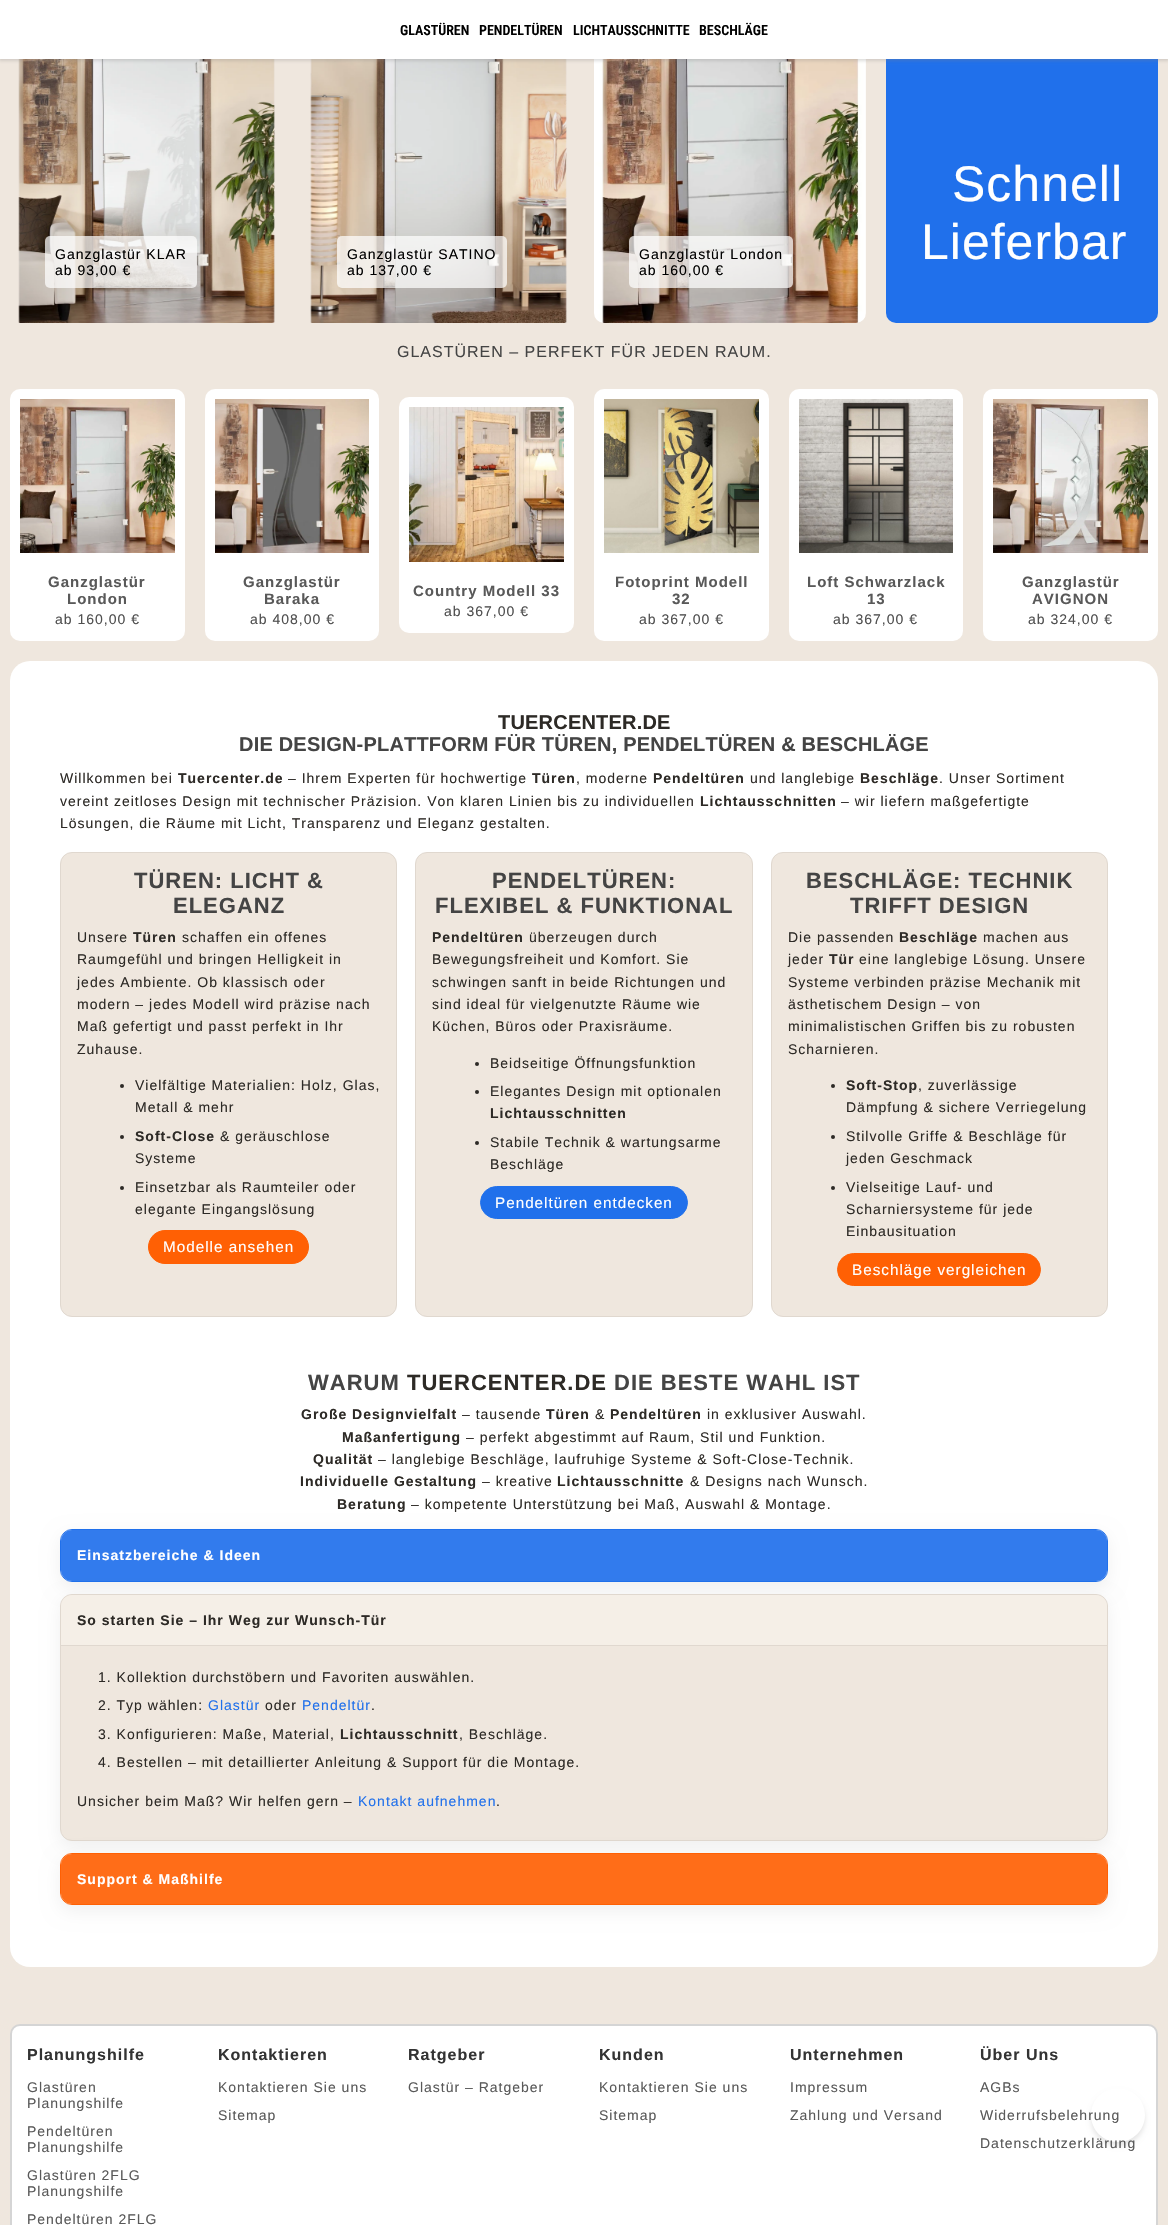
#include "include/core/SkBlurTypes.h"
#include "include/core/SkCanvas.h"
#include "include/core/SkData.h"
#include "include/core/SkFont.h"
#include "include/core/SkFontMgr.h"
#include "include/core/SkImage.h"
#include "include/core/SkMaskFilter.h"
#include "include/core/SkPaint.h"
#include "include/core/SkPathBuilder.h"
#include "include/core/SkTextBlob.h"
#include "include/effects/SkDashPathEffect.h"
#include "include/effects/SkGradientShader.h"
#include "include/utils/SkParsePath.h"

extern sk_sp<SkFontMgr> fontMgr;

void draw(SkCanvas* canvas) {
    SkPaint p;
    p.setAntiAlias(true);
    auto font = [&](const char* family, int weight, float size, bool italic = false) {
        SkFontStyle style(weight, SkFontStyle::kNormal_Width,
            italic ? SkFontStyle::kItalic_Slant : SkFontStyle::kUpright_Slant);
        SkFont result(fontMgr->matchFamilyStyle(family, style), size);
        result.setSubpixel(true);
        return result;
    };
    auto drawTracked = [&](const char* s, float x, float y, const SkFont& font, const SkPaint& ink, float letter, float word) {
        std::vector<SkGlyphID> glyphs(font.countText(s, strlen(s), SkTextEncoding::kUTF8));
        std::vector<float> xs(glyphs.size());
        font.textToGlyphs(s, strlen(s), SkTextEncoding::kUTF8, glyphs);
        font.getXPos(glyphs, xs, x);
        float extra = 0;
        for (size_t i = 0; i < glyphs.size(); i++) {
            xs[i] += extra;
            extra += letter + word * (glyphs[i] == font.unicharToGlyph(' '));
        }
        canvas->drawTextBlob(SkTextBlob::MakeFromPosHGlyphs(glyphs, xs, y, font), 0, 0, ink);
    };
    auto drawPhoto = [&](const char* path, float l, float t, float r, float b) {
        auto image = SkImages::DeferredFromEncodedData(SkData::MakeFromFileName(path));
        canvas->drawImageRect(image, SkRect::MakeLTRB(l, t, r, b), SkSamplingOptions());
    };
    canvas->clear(0xFFEFE7DE);
    drawPhoto("media/1.png", 18, 59, 275, 323);
    drawPhoto("media/2.png", 310, 59, 567, 323);
    drawPhoto("media/3.png", 594, 59, 866, 323);
    p.setColor(0xFF2070EB);
    canvas->drawRoundRect(SkRect::MakeLTRB(886, 8, 1158, 323), 10, 10, p);
    p.setColor(0x45808080);
    p.setMaskFilter(SkMaskFilter::MakeBlur(kNormal_SkBlurStyle, 1.5f));
    canvas->drawRect(SkRect::MakeLTRB(-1, 0, 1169, 61), p);
    p.setMaskFilter(nullptr);
    p.setColor(0xFFFFFFFF);
    canvas->drawRect(SkRect::MakeLTRB(0, 0, 1168, 59), p);
    auto font1 = font("Roboto Condensed", 600, 14);
    p.setColor(0xFF000000);
    {
        const struct { const char* s; float x, y; } items[] = {
            {"GLASTÜREN", 400, 35},
            {"PENDELTÜREN", 479, 35},
            {"LICHTAUSSCHNITTE", 573, 35},
            {"BESCHLÄGE", 699, 35},
        };
        for (auto [s, x, y] : items) {
            canvas->drawString(s, x, y, font1, p);
        }
    }
    p.setColor(0xB5FFFFFF);
    canvas->drawRoundRect(SkRect::MakeLTRB(45, 236, 197, 288), 5, 5, p);
    auto font2 = font("Liberation Sans", 400, 14);
    p.setColor(0xFF000000);
    drawTracked("Ganzglastür KLAR", 55, 259, font2, p, 1, 0);
    drawTracked("ab 93,00 €", 55, 275, font2, p, 1, 0);
    p.setColor(0xB5FFFFFF);
    canvas->drawRoundRect(SkRect::MakeLTRB(337, 236, 507, 288), 5, 5, p);
    p.setColor(0xFF000000);
    drawTracked("Ganzglastür SATINO", 347, 259, font2, p, 1, 0);
    drawTracked("ab 137,00 €", 347, 275, font2, p, 1, 0);
    p.setColor(0xB5FFFFFF);
    canvas->drawRoundRect(SkRect::MakeLTRB(629, 236, 793, 288), 5, 5, p);
    p.setColor(0xFF000000);
    drawTracked("Ganzglastür London", 639, 259, font2, p, 1, 0);
    drawTracked("ab 160,00 €", 639, 275, font2, p, 1, 0);
    auto font3 = font("Liberation Sans", 400, 50);
    p.setColor(0xFFFFFFFF);
    drawTracked("Schnell", 952, 201, font3, p, 1, 0);
    drawTracked("Lieferbar", 921, 259, font3, p, 1, 0);
    auto font4 = font("Liberation Sans", 400, 16);
    p.setColor(0xFF444444);
    drawTracked("GLASTÜREN – PERFEKT FÜR JEDEN RAUM.", 397, 357, font4, p, 1, 0);
    p.setColor(0xFFFFFFFF);
    canvas->drawRoundRect(SkRect::MakeLTRB(10, 389, 185, 641), 10, 10, p);
    drawPhoto("media/4.png", 20, 399, 175, 553);
    auto font5 = font("Liberation Sans", 700, 15);
    p.setColor(0xFF595959);
    drawTracked("Ganzglastür", 48, 587, font5, p, 1, 0);
    drawTracked("London", 67, 604, font5, p, 1, 0);
    p.setColor(0xFF4F4F4F);
    drawTracked("ab 160,00 €", 55, 624, font2, p, 1, 0);
    p.setColor(0xFFFFFFFF);
    canvas->drawRoundRect(SkRect::MakeLTRB(205, 389, 379, 641), 10, 10, p);
    drawPhoto("media/5.png", 215, 399, 369, 553);
    p.setColor(0xFF595959);
    drawTracked("Ganzglastür", 243, 587, font5, p, 1, 0);
    drawTracked("Baraka", 264, 604, font5, p, 1, 0);
    p.setColor(0xFF4F4F4F);
    drawTracked("ab 408,00 €", 250, 624, font2, p, 1, 0);
    p.setColor(0xFFFFFFFF);
    canvas->drawRoundRect(SkRect::MakeLTRB(399, 397, 574, 633), 10, 10, p);
    drawPhoto("media/6.png", 409, 407, 564, 562);
    p.setColor(0xFF595959);
    drawTracked("Country Modell 33", 413, 596, font5, p, 1, 0);
    p.setColor(0xFF4F4F4F);
    drawTracked("ab 367,00 €", 444, 616, font2, p, 1, 0);
    p.setColor(0xFFFFFFFF);
    canvas->drawRoundRect(SkRect::MakeLTRB(594, 389, 769, 641), 10, 10, p);
    drawPhoto("media/7.png", 604, 399, 759, 553);
    p.setColor(0xFF595959);
    drawTracked("Fotoprint Modell", 615, 587, font5, p, 1, 0);
    drawTracked("32", 672, 604, font5, p, 1, 0);
    p.setColor(0xFF4F4F4F);
    drawTracked("ab 367,00 €", 639, 624, font2, p, 1, 0);
    p.setColor(0xFFFFFFFF);
    canvas->drawRoundRect(SkRect::MakeLTRB(789, 389, 963, 641), 10, 10, p);
    drawPhoto("media/8.png", 799, 399, 953, 553);
    p.setColor(0xFF595959);
    drawTracked("Loft Schwarzlack", 807, 587, font5, p, 1, 0);
    drawTracked("13", 867, 604, font5, p, 1, 0);
    p.setColor(0xFF4F4F4F);
    drawTracked("ab 367,00 €", 833, 624, font2, p, 1, 0);
    p.setColor(0xFFFFFFFF);
    canvas->drawRoundRect(SkRect::MakeLTRB(983, 389, 1158, 641), 10, 10, p);
    drawPhoto("media/9.png", 993, 399, 1148, 553);
    p.setColor(0xFF595959);
    drawTracked("Ganzglastür", 1022, 587, font5, p, 1, 0);
    drawTracked("AVIGNON", 1032, 604, font5, p, 1, 0);
    p.setColor(0xFF4F4F4F);
    drawTracked("ab 324,00 €", 1028, 624, font2, p, 1, 0);
    p.setColor(0xFFFFFFFF);
    canvas->drawRoundRect(SkRect::MakeLTRB(10, 661, 1158, 1967), 20, 20, p);
    auto font6 = font("Liberation Sans", 700, 20);
    p.setColor(0xFF2D2A26);
    drawTracked("TUERCENTER.DE", 498, 729, font6, p, 0.2f, 0);
    p.setColor(0xFF444444);
    drawTracked("DIE DESIGN-PLATTFORM FÜR TÜREN, PENDELTÜREN & BESCHLÄGE", 239, 751, font6, p, 0.2f, 0);
    p.setColor(0xFF2D2A26);
    drawTracked("Willkommen bei", 60, 783, font2, p, 1, 0);
    auto font7 = font("Liberation Sans", 700, 14);
    drawTracked("Tuercenter.de", 178, 783, font7, p, 1, 0);
    drawTracked("– Ihrem Experten für hochwertige", 288, 783, font2, p, 1, 0);
    drawTracked("Türen", 532, 783, font7, p, 1, 0);
    drawTracked(", moderne", 576, 783, font2, p, 1, 0);
    drawTracked("Pendeltüren", 653, 783, font7, p, 1, 0);
    drawTracked("und langlebige", 750, 783, font2, p, 1, 0);
    drawTracked("Beschläge", 860, 783, font7, p, 1, 0);
    drawTracked(". Unser Sortiment", 939, 783, font2, p, 1, 0);
    drawTracked("vereint zeitloses Design mit technischer Präzision. Von klaren Linien bis zu individuellen", 60, 806, font2, p, 1, 0);
    drawTracked("Lichtausschnitten", 700, 806, font7, p, 1, 0);
    drawTracked("– wir liefern maßgefertigte", 841, 806, font2, p, 1, 0);
    drawTracked("Lösungen, die Räume mit Licht, Transparenz und Eleganz gestalten.", 60, 828, font2, p, 1, 0);
    p.setColor(0xFFEFE7DE);
    canvas->drawRoundRect(SkRect::MakeLTRB(60.5f, 852.5f, 396.5f, 1316.5f), 11.5f, 11.5f, p);
    p.setStyle(SkPaint::kStroke_Style);
    p.setStrokeWidth(1);
    p.setColor(0xFFE0D8CF);
    canvas->drawRoundRect(SkRect::MakeLTRB(60.5f, 852.5f, 396.5f, 1316.5f), 11.5f, 11.5f, p);
    auto font8 = font("Liberation Sans", 700, 22);
    p.setStyle(SkPaint::kFill_Style);
    p.setColor(0xFF444444);
    drawTracked("TÜREN: LICHT &", 134, 888, font8, p, 1, 0);
    drawTracked("ELEGANZ", 173, 913, font8, p, 1, 0);
    p.setColor(0xFF2D2A26);
    drawTracked("Unsere", 77, 942, font2, p, 1, 0);
    drawTracked("Türen", 133, 942, font7, p, 1, 0);
    {
        const struct { const char* s; float x, y; } items[] = {
            {"schaffen ein offenes", 182, 942},
            {"Raumgefühl und bringen Helligkeit in", 77, 964},
            {"jedes Ambiente. Ob klassisch oder", 77, 987},
            {"modern – jedes Modell wird präzise nach", 77, 1009},
            {"Maß gefertigt und passt perfekt in Ihr", 77, 1031},
            {"Zuhause.", 77, 1054},
        };
        for (auto [s, x, y] : items) {
            drawTracked(s, x, y, font2, p, 1, 0);
        }
    }
    canvas->drawCircle(122, 1086, 2, p);
    drawTracked("Vielfältige Materialien: Holz, Glas,", 135, 1090, font2, p, 1, 0);
    drawTracked("Metall & mehr", 135, 1112, font2, p, 1, 0);
    canvas->drawCircle(122, 1137, 2, p);
    drawTracked("Soft-Close", 135, 1141, font7, p, 1, 0);
    drawTracked("& geräuschlose", 220, 1141, font2, p, 1, 0);
    drawTracked("Systeme", 135, 1163, font2, p, 1, 0);
    canvas->drawCircle(122, 1188, 2, p);
    drawTracked("Einsetzbar als Raumteiler oder", 135, 1192, font2, p, 1, 0);
    drawTracked("elegante Eingangslösung", 135, 1214, font2, p, 1, 0);
    p.setColor(0xFFFF6004);
    canvas->drawRoundRect(SkRect::MakeLTRB(148.5f, 1230.5f, 308.5f, 1263.5f), 16.5f, 16.5f, p);
    p.setStyle(SkPaint::kStroke_Style);
    canvas->drawRoundRect(SkRect::MakeLTRB(148.5f, 1230.5f, 308.5f, 1263.5f), 16.5f, 16.5f, p);
    auto font9 = font("Liberation Sans", 400, 15.25f);
    p.setStyle(SkPaint::kFill_Style);
    p.setColor(0xFFFFFFFF);
    drawTracked("Modelle ansehen", 163, 1252, font9, p, 1, 0);
    p.setColor(0xFFEFE7DE);
    canvas->drawRoundRect(SkRect::MakeLTRB(415.5f, 852.5f, 752.5f, 1316.5f), 11.5f, 11.5f, p);
    p.setStyle(SkPaint::kStroke_Style);
    p.setColor(0xFFE0D8CF);
    canvas->drawRoundRect(SkRect::MakeLTRB(415.5f, 852.5f, 752.5f, 1316.5f), 11.5f, 11.5f, p);
    p.setStyle(SkPaint::kFill_Style);
    p.setColor(0xFF444444);
    drawTracked("PENDELTÜREN:", 492, 888, font8, p, 1, 0);
    drawTracked("FLEXIBEL & FUNKTIONAL", 435, 913, font8, p, 1, 0);
    p.setColor(0xFF2D2A26);
    drawTracked("Pendeltüren", 432, 942, font7, p, 1, 0);
    {
        const struct { const char* s; float x, y; } items[] = {
            {"überzeugen durch", 529, 942},
            {"Bewegungsfreiheit und Komfort. Sie", 432, 964},
            {"schwingen sanft in beide Richtungen und", 432, 987},
            {"sind ideal für vielgenutzte Räume wie", 432, 1009},
            {"Küchen, Büros oder Praxisräume.", 432, 1031},
        };
        for (auto [s, x, y] : items) {
            drawTracked(s, x, y, font2, p, 1, 0);
        }
    }
    canvas->drawCircle(477, 1064, 2, p);
    drawTracked("Beidseitige Öffnungsfunktion", 490, 1068, font2, p, 1, 0);
    canvas->drawCircle(477, 1092, 2, p);
    drawTracked("Elegantes Design mit optionalen", 490, 1096, font2, p, 1, 0);
    drawTracked("Lichtausschnitten", 490, 1118, font7, p, 1, 0);
    canvas->drawCircle(477, 1143, 2, p);
    drawTracked("Stabile Technik & wartungsarme", 490, 1147, font2, p, 1, 0);
    drawTracked("Beschläge", 490, 1169, font2, p, 1, 0);
    p.setColor(0xFF2070EB);
    canvas->drawRoundRect(SkRect::MakeLTRB(480.5f, 1186.5f, 687.5f, 1218.5f), 16, 16, p);
    p.setStyle(SkPaint::kStroke_Style);
    canvas->drawRoundRect(SkRect::MakeLTRB(480.5f, 1186.5f, 687.5f, 1218.5f), 16, 16, p);
    p.setStyle(SkPaint::kFill_Style);
    p.setColor(0xFFFFFFFF);
    drawTracked("Pendeltüren entdecken", 495, 1208, font9, p, 1, 0);
    p.setColor(0xFFEFE7DE);
    canvas->drawRoundRect(SkRect::MakeLTRB(771.5f, 852.5f, 1107.5f, 1316.5f), 11.5f, 11.5f, p);
    p.setStyle(SkPaint::kStroke_Style);
    p.setColor(0xFFE0D8CF);
    canvas->drawRoundRect(SkRect::MakeLTRB(771.5f, 852.5f, 1107.5f, 1316.5f), 11.5f, 11.5f, p);
    p.setStyle(SkPaint::kFill_Style);
    p.setColor(0xFF444444);
    drawTracked("BESCHLÄGE: TECHNIK", 806, 888, font8, p, 1, 0);
    drawTracked("TRIFFT DESIGN", 850, 913, font8, p, 1, 0);
    p.setColor(0xFF2D2A26);
    drawTracked("Die passenden", 788, 942, font2, p, 1, 0);
    drawTracked("Beschläge", 899, 942, font7, p, 1, 0);
    drawTracked("machen aus", 983, 942, font2, p, 1, 0);
    drawTracked("jeder", 788, 964, font2, p, 1, 0);
    drawTracked("Tür", 829, 964, font7, p, 1, 0);
    {
        const struct { const char* s; float x, y; } items[] = {
            {"eine langlebige Lösung. Unsere", 859, 964},
            {"Systeme verbinden präzise Mechanik mit", 788, 987},
            {"ästhetischem Design – von", 788, 1009},
            {"minimalistischen Griffen bis zu robusten", 788, 1031},
            {"Scharnieren.", 788, 1054},
        };
        for (auto [s, x, y] : items) {
            drawTracked(s, x, y, font2, p, 1, 0);
        }
    }
    canvas->drawCircle(833, 1086, 2, p);
    drawTracked("Soft-Stop", 846, 1090, font7, p, 1, 0);
    drawTracked(", zuverlässige", 918, 1090, font2, p, 1, 0);
    drawTracked("Dämpfung & sichere Verriegelung", 846, 1112, font2, p, 1, 0);
    canvas->drawCircle(833, 1137, 2, p);
    drawTracked("Stilvolle Griffe & Beschläge für", 846, 1141, font2, p, 1, 0);
    drawTracked("jeden Geschmack", 846, 1163, font2, p, 1, 0);
    canvas->drawCircle(833, 1188, 2, p);
    {
        const struct { const char* s; float x, y; } items[] = {
            {"Vielseitige Lauf- und", 846, 1192},
            {"Scharniersysteme für jede", 846, 1214},
            {"Einbausituation", 846, 1236},
        };
        for (auto [s, x, y] : items) {
            drawTracked(s, x, y, font2, p, 1, 0);
        }
    }
    p.setColor(0xFFFF6004);
    canvas->drawRoundRect(SkRect::MakeLTRB(837.5f, 1253.5f, 1040.5f, 1285.5f), 16, 16, p);
    p.setStyle(SkPaint::kStroke_Style);
    canvas->drawRoundRect(SkRect::MakeLTRB(837.5f, 1253.5f, 1040.5f, 1285.5f), 16, 16, p);
    p.setStyle(SkPaint::kFill_Style);
    p.setColor(0xFFFFFFFF);
    drawTracked("Beschläge vergleichen", 852, 1275, font9, p, 1, 0);
    p.setColor(0xFF444444);
    drawTracked("WARUM", 308, 1390, font8, p, 1, 0);
    p.setColor(0xFF2D2A26);
    drawTracked("TUERCENTER.DE", 407, 1390, font8, p, 1, 0);
    p.setColor(0xFF444444);
    drawTracked("DIE BESTE WAHL IST", 614, 1390, font8, p, 1, 0);
    p.setColor(0xFF2D2A26);
    drawTracked("Große Designvielfalt", 301, 1419, font7, p, 1, 0);
    drawTracked("– tausende", 462, 1419, font2, p, 1, 0);
    drawTracked("Türen", 546, 1419, font7, p, 1, 0);
    drawTracked("&", 595, 1419, font2, p, 1, 0);
    drawTracked("Pendeltüren", 610, 1419, font7, p, 1, 0);
    drawTracked("in exklusiver Auswahl.", 707, 1419, font2, p, 1, 0);
    drawTracked("Maßanfertigung", 342, 1442, font7, p, 1, 0);
    drawTracked("– perfekt abgestimmt auf Raum, Stil und Funktion.", 466, 1442, font2, p, 1, 0);
    drawTracked("Qualität", 313, 1464, font7, p, 1, 0);
    drawTracked("– langlebige Beschläge, laufruhige Systeme & Soft-Close-Technik.", 378, 1464, font2, p, 1, 0);
    drawTracked("Individuelle Gestaltung", 300, 1486, font7, p, 1, 0);
    drawTracked("– kreative", 482, 1486, font2, p, 1, 0);
    drawTracked("Lichtausschnitte", 557, 1486, font7, p, 1, 0);
    drawTracked("& Designs nach Wunsch.", 690, 1486, font2, p, 1, 0);
    drawTracked("Beratung", 337, 1509, font7, p, 1, 0);
    drawTracked("– kompetente Unterstützung bei Maß, Auswahl & Montage.", 411, 1509, font2, p, 1, 0);
    p.setColor(0x0F000000);
    p.setMaskFilter(SkMaskFilter::MakeBlur(kNormal_SkBlurStyle, 9));
    canvas->drawRoundRect(SkRect::MakeLTRB(60, 1535, 1108, 1588), 12, 12, p);
    p.setMaskFilter(nullptr);
    p.setStyle(SkPaint::kStroke_Style);
    p.setColor(0xFF2070EB);
    canvas->drawRoundRect(SkRect::MakeLTRB(60.5f, 1529.5f, 1107.5f, 1581.5f), 11.5f, 11.5f, p);
    p.setStyle(SkPaint::kFill_Style);
    p.setColor(0xFF327BED);
    canvas->drawRoundRect(SkRect::MakeLTRB(61, 1530, 1107, 1581), 11, 11, p);
    p.setColor(0xFFFFFFFF);
    drawTracked("Einsatzbereiche & Ideen", 77, 1560, font7, p, 1, 0);
    p.setColor(0x0F000000);
    p.setMaskFilter(SkMaskFilter::MakeBlur(kNormal_SkBlurStyle, 9));
    canvas->drawRoundRect(SkRect::MakeLTRB(60, 1600, 1108, 1847), 12, 12, p);
    p.setMaskFilter(nullptr);
    p.setColor(0xFFEFE7DE);
    canvas->drawRoundRect(SkRect::MakeLTRB(60.5f, 1594.5f, 1107.5f, 1840.5f), 11.5f, 11.5f, p);
    p.setStyle(SkPaint::kStroke_Style);
    p.setColor(0xFFE0D8CF);
    canvas->drawRoundRect(SkRect::MakeLTRB(60.5f, 1594.5f, 1107.5f, 1840.5f), 11.5f, 11.5f, p);
    p.setStyle(SkPaint::kFill_Style);
    p.setColor(0xFFF5EFE7);
    canvas->drawPath(SkPathBuilder().moveTo(72, 1595).lineTo(1096, 1595).cubicTo(1102, 1595, 1107, 1600, 1107, 1606).lineTo(1107, 1646).lineTo(61, 1646).lineTo(61, 1606).cubicTo(61, 1600, 66, 1595, 72, 1595).close().detach(), p);
    p.setColor(0xFFE0D8CF);
    canvas->drawRect(SkRect::MakeLTRB(61, 1645, 1107, 1646), p);
    p.setColor(0xFF2D2A26);
    drawTracked("So starten Sie – Ihr Weg zur Wunsch-Tür", 77, 1625, font7, p, 1, 0);
    drawTracked("1. Kollektion durchstöbern und Favoriten auswählen.", 98, 1682, font2, p, 1, 0);
    drawTracked("2. Typ wählen:", 98, 1710, font2, p, 1, 0);
    p.setColor(0xFF2070EB);
    drawTracked("Glastür", 208, 1710, font2, p, 1, 0);
    p.setColor(0xFF2D2A26);
    drawTracked("oder", 265, 1710, font2, p, 1, 0);
    p.setColor(0xFF2070EB);
    drawTracked("Pendeltür", 302, 1710, font2, p, 1, 0);
    p.setColor(0xFF2D2A26);
    drawTracked(".", 371, 1710, font2, p, 1, 0);
    drawTracked("3. Konfigurieren: Maße, Material,", 98, 1739, font2, p, 1, 0);
    drawTracked("Lichtausschnitt", 340, 1739, font7, p, 1, 0);
    {
        const struct { const char* s; float x, y; } items[] = {
            {", Beschläge.", 459, 1739},
            {"4. Bestellen – mit detaillierter Anleitung & Support für die Montage.", 98, 1767},
            {"Unsicher beim Maß? Wir helfen gern –", 77, 1806},
        };
        for (auto [s, x, y] : items) {
            drawTracked(s, x, y, font2, p, 1, 0);
        }
    }
    p.setColor(0xFF2070EB);
    drawTracked("Kontakt aufnehmen", 358, 1806, font2, p, 1, 0);
    p.setColor(0xFF2D2A26);
    drawTracked(".", 496, 1806, font2, p, 1, 0);
    p.setColor(0x0F000000);
    p.setMaskFilter(SkMaskFilter::MakeBlur(kNormal_SkBlurStyle, 9));
    canvas->drawRoundRect(SkRect::MakeLTRB(60, 1859, 1108, 1911), 12, 12, p);
    p.setMaskFilter(nullptr);
    p.setStyle(SkPaint::kStroke_Style);
    p.setColor(0xFFFF6004);
    canvas->drawRoundRect(SkRect::MakeLTRB(60.5f, 1853.5f, 1107.5f, 1904.5f), 11.5f, 11.5f, p);
    p.setStyle(SkPaint::kFill_Style);
    p.setColor(0xFFFF6D18);
    canvas->drawRoundRect(SkRect::MakeLTRB(61, 1854, 1107, 1904), 11, 11, p);
    p.setColor(0xFFFFFFFF);
    drawTracked("Support & Maßhilfe", 77, 1884, font7, p, 1, 0);
    canvas->drawRoundRect(SkRect::MakeLTRB(11, 2025, 1157, 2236), 9, 9, p);
    p.setStyle(SkPaint::kStroke_Style);
    p.setStrokeWidth(2);
    p.setColor(0xFFD5D5D5);
    canvas->drawRoundRect(SkRect::MakeLTRB(11, 2025, 1157, 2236), 9, 9, p);
    auto font10 = font("Liberation Sans", 700, 16);
    p.setStyle(SkPaint::kFill_Style);
    p.setColor(0xFF333333);
    drawTracked("Planungshilfe", 27, 2060, font10, p, 1, 0);
    p.setColor(0xFF595959);
    {
        const struct { const char* s; float x, y; } items[] = {
            {"Glastüren", 27, 2092},
            {"Planungshilfe", 27, 2108},
            {"Pendeltüren", 27, 2136},
            {"Planungshilfe", 27, 2152},
            {"Glastüren 2FLG", 27, 2180},
            {"Planungshilfe", 27, 2196},
            {"Pendeltüren 2FLG", 27, 2224},
        };
        for (auto [s, x, y] : items) {
            drawTracked(s, x, y, font2, p, 1, 0);
        }
    }
    p.setColor(0xFF333333);
    drawTracked("Kontaktieren", 218, 2060, font10, p, 1, 0);
    p.setColor(0xFF595959);
    drawTracked("Kontaktieren Sie uns", 218, 2092, font2, p, 1, 0);
    drawTracked("Sitemap", 218, 2120, font2, p, 1, 0);
    p.setColor(0xFF333333);
    drawTracked("Ratgeber", 408, 2060, font10, p, 1, 0);
    p.setColor(0xFF595959);
    drawTracked("Glastür – Ratgeber", 408, 2092, font2, p, 1, 0);
    p.setColor(0xFF333333);
    drawTracked("Kunden", 599, 2060, font10, p, 1, 0);
    p.setColor(0xFF595959);
    drawTracked("Kontaktieren Sie uns", 599, 2092, font2, p, 1, 0);
    drawTracked("Sitemap", 599, 2120, font2, p, 1, 0);
    p.setColor(0xFF333333);
    drawTracked("Unternehmen", 790, 2060, font10, p, 1, 0);
    p.setColor(0xFF595959);
    drawTracked("Impressum", 790, 2092, font2, p, 1, 0);
    drawTracked("Zahlung und Versand", 790, 2120, font2, p, 1, 0);
    p.setColor(0xFF333333);
    drawTracked("Über Uns", 980, 2060, font10, p, 1, 0);
    p.setColor(0xFF595959);
    {
        const struct { const char* s; float x, y; } items[] = {
            {"AGBs", 980, 2092},
            {"Widerrufsbelehrung", 980, 2120},
            {"Datenschutzerklärung", 980, 2148},
        };
        for (auto [s, x, y] : items) {
            drawTracked(s, x, y, font2, p, 1, 0);
        }
    }
    canvas->save();
    canvas->clipPath(SkPathBuilder(SkPathFillType::kEvenOdd).moveTo(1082, 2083).lineTo(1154, 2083).lineTo(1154, 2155).lineTo(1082, 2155).close().moveTo(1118, 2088).cubicTo(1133, 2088, 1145, 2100, 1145, 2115).cubicTo(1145, 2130, 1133, 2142, 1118, 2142).cubicTo(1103, 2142, 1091, 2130, 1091, 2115).cubicTo(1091, 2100, 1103, 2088, 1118, 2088).close().detach(), true);
    p.setColor(0x1A000000);
    p.setMaskFilter(SkMaskFilter::MakeBlur(kNormal_SkBlurStyle, 2.5f));
    canvas->drawRoundRect(SkRect::MakeLTRB(1091, 2092, 1145, 2146), 27, 27, p);
    p.setMaskFilter(nullptr);
    canvas->restore();
}
